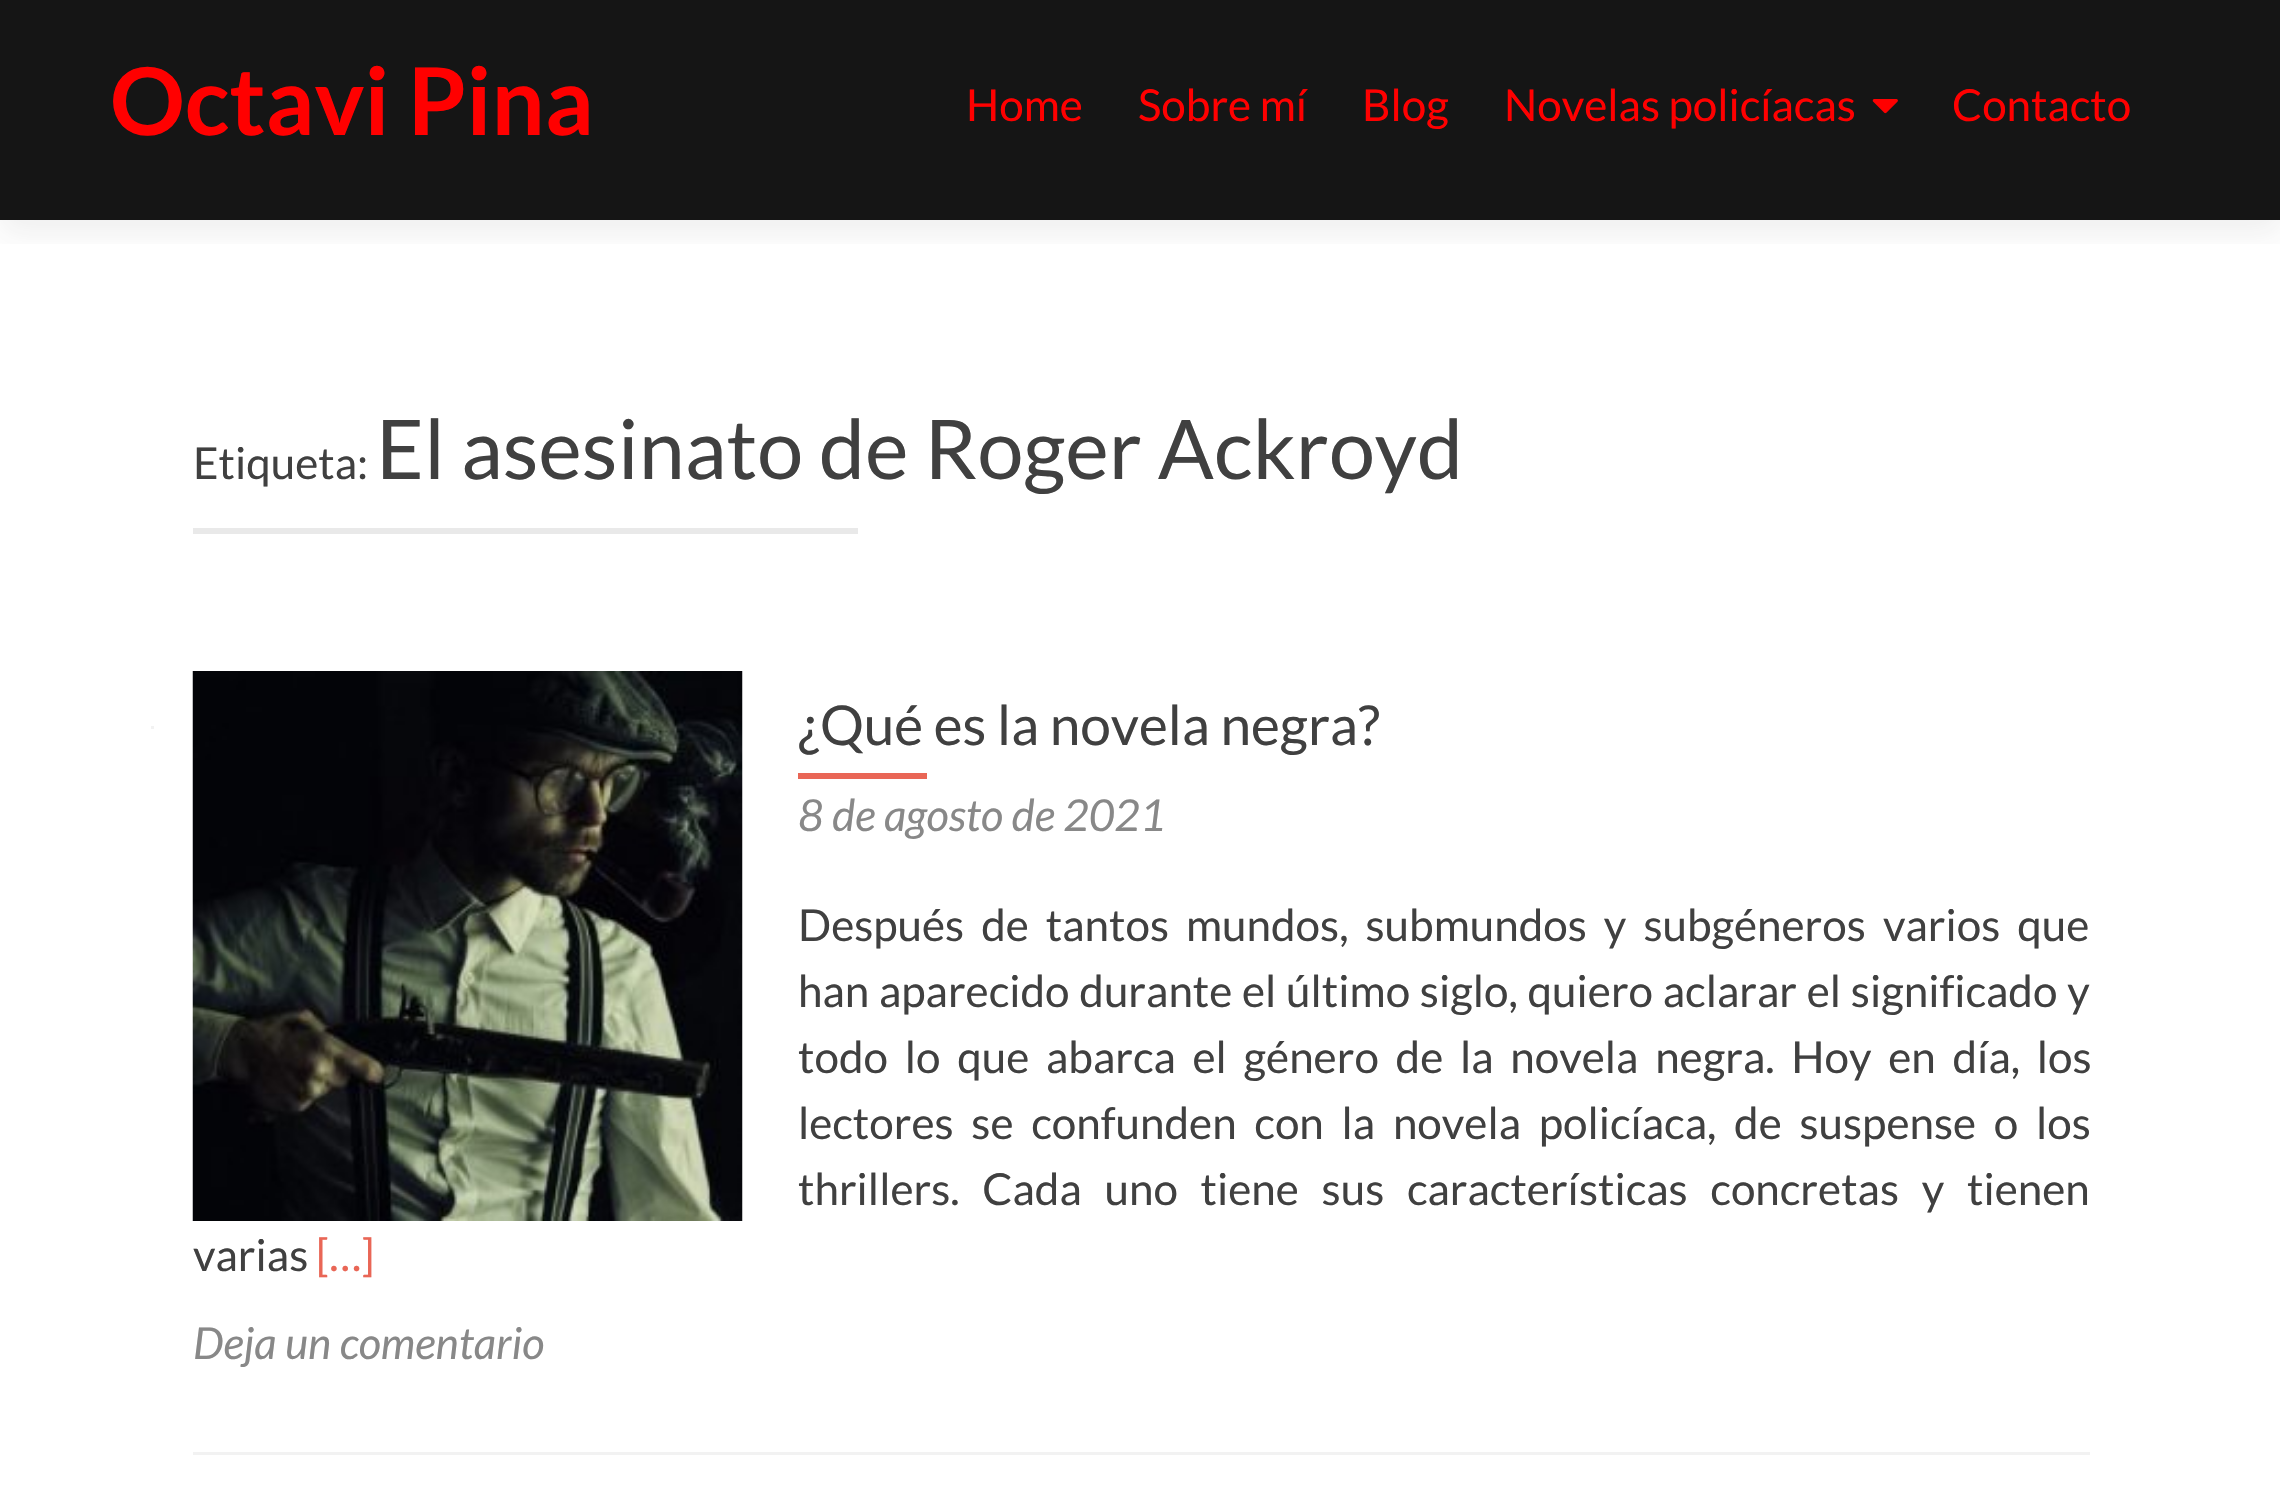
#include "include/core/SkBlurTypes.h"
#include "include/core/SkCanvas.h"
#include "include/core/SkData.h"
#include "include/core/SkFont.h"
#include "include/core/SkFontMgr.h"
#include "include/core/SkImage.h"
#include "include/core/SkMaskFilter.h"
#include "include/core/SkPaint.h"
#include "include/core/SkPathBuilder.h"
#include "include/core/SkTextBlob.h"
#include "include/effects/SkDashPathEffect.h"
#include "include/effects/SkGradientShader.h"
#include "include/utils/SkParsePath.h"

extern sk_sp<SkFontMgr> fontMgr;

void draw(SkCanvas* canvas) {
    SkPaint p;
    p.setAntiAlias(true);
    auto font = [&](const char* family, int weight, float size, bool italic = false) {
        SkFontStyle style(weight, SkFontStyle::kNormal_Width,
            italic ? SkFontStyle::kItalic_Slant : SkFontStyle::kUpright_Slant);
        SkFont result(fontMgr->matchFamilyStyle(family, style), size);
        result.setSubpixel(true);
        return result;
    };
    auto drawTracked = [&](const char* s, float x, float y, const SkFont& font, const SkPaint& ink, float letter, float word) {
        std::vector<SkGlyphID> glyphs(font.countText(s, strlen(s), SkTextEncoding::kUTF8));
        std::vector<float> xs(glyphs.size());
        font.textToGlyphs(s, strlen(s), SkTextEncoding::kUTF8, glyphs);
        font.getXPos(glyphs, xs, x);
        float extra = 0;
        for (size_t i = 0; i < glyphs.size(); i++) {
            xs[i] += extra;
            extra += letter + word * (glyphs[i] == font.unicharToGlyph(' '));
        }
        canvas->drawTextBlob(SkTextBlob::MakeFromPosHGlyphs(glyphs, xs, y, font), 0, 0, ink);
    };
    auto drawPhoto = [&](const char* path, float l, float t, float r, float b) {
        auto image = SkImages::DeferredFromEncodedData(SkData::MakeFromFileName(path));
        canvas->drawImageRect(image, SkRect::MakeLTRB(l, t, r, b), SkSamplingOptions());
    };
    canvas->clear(0xFF151515);
    p.setColor(0xFFFFFFFF);
    canvas->drawRect(SkRect::MakeLTRB(0, 220, 2280, 1491), p);
    canvas->save();
    canvas->clipRect(SkRect::MakeLTRB(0, 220, 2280, 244));
    p.setColor(0x14323232);
    p.setMaskFilter(SkMaskFilter::MakeBlur(kNormal_SkBlurStyle, 15));
    canvas->drawRect(SkRect::MakeLTRB(0, 14, 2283, 234), p);
    p.setMaskFilter(nullptr);
    canvas->restore();
    auto font1 = font("Lato", 700, 93.5f);
    p.setColor(0xFFFF0000);
    canvas->drawString("Octavi Pina", 110, 135, font1, p);
    auto font2 = font("Lato", 400, 44);
    {
        const struct { const char* s; float x, y; } items[] = {
            {"Home", 966, 121},
            {"Sobre mí", 1138, 121},
            {"Blog", 1362, 121},
            {"Novelas policíacas", 1504, 121},
        };
        for (auto [s, x, y] : items) {
            canvas->drawString(s, x, y, font2, p);
        }
    }
    drawPhoto("media/1.png", 1872, 99, 1898, 114);
    canvas->drawString("Contacto", 1952, 121, font2, p);
    p.setColor(0xFFF2F2F2);
    canvas->drawRect(SkRect::MakeLTRB(151, 726, 154, 729), p);
    p.setColor(0xFF404040);
    canvas->drawString("Etiqueta:", 193, 479, font2, p);
    auto font3 = font("Lato", 400, 82.5f);
    canvas->drawString("El asesinato de Roger Ackroyd", 376, 479, font3, p);
    p.setColor(0xFFE9E9E9);
    canvas->drawRect(SkRect::MakeLTRB(193, 528, 858, 534), p);
    p.setColor(0xFFF2F2F2);
    canvas->drawRect(SkRect::MakeLTRB(193, 1452, 2090, 1455), p);
    drawPhoto("media/2.png", 192, 671, 743, 1221);
    auto font4 = font("Lato", 400, 55);
    p.setColor(0xFF404040);
    canvas->drawString("¿Qué es la novela negra?", 798, 745, font4, p);
    p.setColor(0xFFE96656);
    canvas->drawRect(SkRect::MakeLTRB(798, 773, 927, 779), p);
    auto font5 = font("Lato", 400, 44, true);
    p.setColor(0xFF888888);
    canvas->drawString("8 de agosto de 2021", 798, 831, font5, p);
    p.setColor(0xFF404040);
    drawTracked("Después de tantos mundos, submundos y subgéneros varios que", 798, 941, font2, p, 0, 8.5f);
    drawTracked("han aparecido durante el último siglo, quiero aclarar el significado y", 798, 1007, font2, p, 0, 1.25f);
    drawTracked("todo lo que abarca el género de la novela negra. Hoy en día, los", 798, 1073, font2, p, 0, 8.25f);
    drawTracked("lectores se confunden con la novela policíaca, de suspense o los", 798, 1139, font2, p, 0, 9.25f);
    drawTracked("thrillers. Cada uno tiene sus características concretas y tienen", 798, 1205, font2, p, 0, 14.25f);
    canvas->drawString("varias", 193, 1271, font2, p);
    p.setColor(0xFFE96656);
    canvas->drawString("[…]", 316, 1271, font2, p);
    p.setColor(0xFF888888);
    canvas->drawString("Deja un comentario", 193, 1359, font5, p);
}
